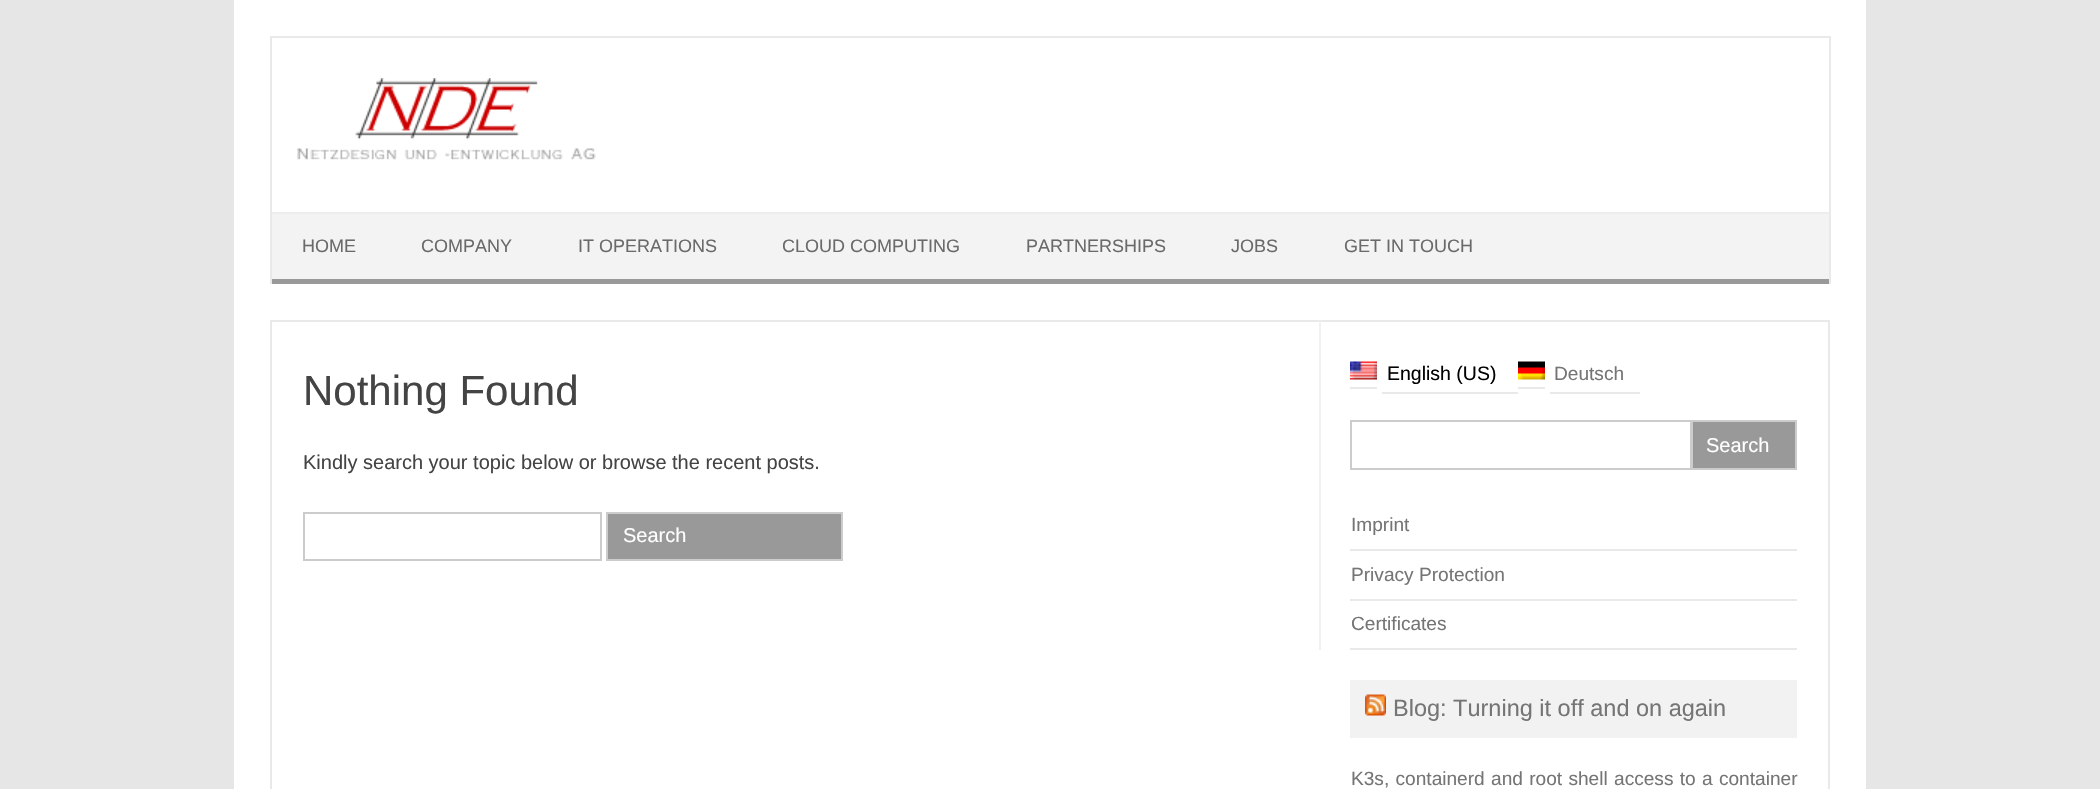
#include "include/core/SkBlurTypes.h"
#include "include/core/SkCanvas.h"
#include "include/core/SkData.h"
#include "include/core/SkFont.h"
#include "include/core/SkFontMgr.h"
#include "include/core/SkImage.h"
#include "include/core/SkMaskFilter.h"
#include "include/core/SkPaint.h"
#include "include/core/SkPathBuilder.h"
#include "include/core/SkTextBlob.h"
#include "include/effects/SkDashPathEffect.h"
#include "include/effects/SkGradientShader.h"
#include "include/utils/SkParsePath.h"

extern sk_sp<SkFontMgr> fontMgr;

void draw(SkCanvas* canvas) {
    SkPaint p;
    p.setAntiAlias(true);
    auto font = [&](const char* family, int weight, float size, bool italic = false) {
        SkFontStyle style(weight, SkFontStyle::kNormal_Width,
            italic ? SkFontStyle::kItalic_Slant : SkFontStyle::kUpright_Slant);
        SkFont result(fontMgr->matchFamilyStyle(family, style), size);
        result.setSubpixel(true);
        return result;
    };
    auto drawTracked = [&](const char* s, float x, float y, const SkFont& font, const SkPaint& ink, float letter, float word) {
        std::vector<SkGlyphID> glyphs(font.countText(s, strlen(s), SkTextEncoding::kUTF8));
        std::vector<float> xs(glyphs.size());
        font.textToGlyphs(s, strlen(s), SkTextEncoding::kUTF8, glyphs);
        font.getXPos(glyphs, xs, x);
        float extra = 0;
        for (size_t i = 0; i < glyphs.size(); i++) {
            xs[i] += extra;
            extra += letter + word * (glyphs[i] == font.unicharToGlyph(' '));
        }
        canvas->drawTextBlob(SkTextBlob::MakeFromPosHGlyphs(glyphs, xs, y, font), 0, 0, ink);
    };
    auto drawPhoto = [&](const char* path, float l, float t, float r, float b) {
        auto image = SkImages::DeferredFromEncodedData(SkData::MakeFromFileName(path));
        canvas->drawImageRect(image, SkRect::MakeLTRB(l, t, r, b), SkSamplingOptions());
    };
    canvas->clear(0xFFE6E6E6);
    {
        const struct { float l, t, r, b; SkColor color; } items[] = {
            {234, 0, 1866, 789, 0xFFFFFFFF},
            {270, 36, 1830, 38, 0xFFE9E9E9},
            {1829, 36, 1831, 284, 0xFFE9E9E9},
            {270, 36, 272, 284, 0xFFE9E9E9},
        };
        for (auto [l, t, r, b, color] : items) {
            p.setColor(color);
            canvas->drawRect(SkRect::MakeLTRB(l, t, r, b), p);
        }
    }
    drawPhoto("media/1.png", 297, 78, 596, 160);
    {
        const struct { float l, t, r, b; SkColor color; } items[] = {
            {272, 214, 1829, 279, 0xFFF3F3F3},
            {272, 212, 1829, 214, 0xFFEDEDED},
            {272, 279, 1829, 284, 0xFF999999},
        };
        for (auto [l, t, r, b, color] : items) {
            p.setColor(color);
            canvas->drawRect(SkRect::MakeLTRB(l, t, r, b), p);
        }
    }
    auto font1 = font("Liberation Sans", 400, 18);
    p.setColor(0xFF6A6A6A);
    {
        const struct { const char* s; float x, y; } items[] = {
            {"HOME", 302, 252},
            {"COMPANY", 421, 252},
            {"IT OPERATIONS", 578, 252},
            {"CLOUD COMPUTING", 782, 252},
            {"PARTNERSHIPS", 1026, 252},
            {"JOBS", 1231, 252},
            {"GET IN TOUCH", 1344, 252},
        };
        for (auto [s, x, y] : items) {
            canvas->drawString(s, x, y, font1, p);
        }
    }
    p.setStyle(SkPaint::kStroke_Style);
    p.setStrokeWidth(2);
    p.setColor(0xFFE9E9E9);
    canvas->drawRect(SkRect::MakeLTRB(271, 321, 1829, 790), p);
    p.setStyle(SkPaint::kFill_Style);
    p.setColor(0xFFF1F1F1);
    canvas->drawRect(SkRect::MakeLTRB(1319, 321, 1321, 650), p);
    auto font2 = font("Liberation Sans", 400, 42);
    p.setColor(0xFF444444);
    canvas->drawString("Nothing Found", 303, 405, font2, p);
    auto font3 = font("Liberation Sans", 400, 20);
    canvas->drawString("Kindly search your topic below or browse the recent posts.", 303, 469, font3, p);
    p.setStyle(SkPaint::kStroke_Style);
    p.setColor(0xFFCCCCCC);
    canvas->drawRect(SkRect::MakeLTRB(304, 513, 601, 560), p);
    p.setStyle(SkPaint::kFill_Style);
    p.setColor(0xFF999999);
    canvas->drawRect(SkRect::MakeLTRB(607, 513, 842, 560), p);
    p.setStyle(SkPaint::kStroke_Style);
    p.setColor(0xFFCCCCCC);
    canvas->drawRect(SkRect::MakeLTRB(607, 513, 842, 560), p);
    p.setStyle(SkPaint::kFill_Style);
    p.setColor(0xFFFFFFFF);
    canvas->drawString("Search", 623, 542, font3, p);
    p.setColor(0xFFE9E9E9);
    canvas->drawRect(SkRect::MakeLTRB(1350, 387, 1377, 389), p);
    canvas->drawRect(SkRect::MakeLTRB(1382, 392, 1518, 394), p);
    drawPhoto("media/2.png", 1350, 361, 1377, 380);
    auto font4 = font("Liberation Sans", 400, 19.5f);
    p.setColor(0xFF000000);
    canvas->drawString("English (US)", 1387, 380, font4, p);
    p.setColor(0xFFE9E9E9);
    canvas->drawRect(SkRect::MakeLTRB(1518, 387, 1545, 389), p);
    canvas->drawRect(SkRect::MakeLTRB(1550, 392, 1640, 394), p);
    drawPhoto("media/3.png", 1518, 361, 1545, 380);
    auto font5 = font("Liberation Sans", 400, 19.1f);
    p.setColor(0xFF757575);
    canvas->drawString("Deutsch", 1554, 380, font5, p);
    p.setStyle(SkPaint::kStroke_Style);
    p.setColor(0xFFCCCCCC);
    canvas->drawRect(SkRect::MakeLTRB(1351, 421, 1691, 469), p);
    p.setStyle(SkPaint::kFill_Style);
    p.setColor(0xFF999999);
    canvas->drawRect(SkRect::MakeLTRB(1692, 421, 1796, 469), p);
    p.setStyle(SkPaint::kStroke_Style);
    p.setColor(0xFFCCCCCC);
    canvas->drawRect(SkRect::MakeLTRB(1692, 421, 1796, 469), p);
    p.setStyle(SkPaint::kFill_Style);
    p.setColor(0xFFFFFFFF);
    canvas->drawString("Search", 1706, 452, font3, p);
    p.setColor(0xFFE9E9E9);
    canvas->drawRect(SkRect::MakeLTRB(1350, 549, 1797, 551), p);
    p.setColor(0xFF757575);
    canvas->drawString("Imprint", 1351, 531, font5, p);
    p.setColor(0xFFE9E9E9);
    canvas->drawRect(SkRect::MakeLTRB(1350, 599, 1797, 601), p);
    p.setColor(0xFF757575);
    canvas->drawString("Privacy Protection", 1351, 581, font5, p);
    p.setColor(0xFFE9E9E9);
    canvas->drawRect(SkRect::MakeLTRB(1350, 648, 1797, 650), p);
    p.setColor(0xFF757575);
    canvas->drawString("Certificates", 1351, 630, font5, p);
    p.setColor(0xFFF2F2F2);
    canvas->drawRect(SkRect::MakeLTRB(1350, 680, 1797, 738), p);
    drawPhoto("media/4.png", 1365, 694, 1386, 716);
    auto font6 = font("Liberation Sans", 400, 23.5f);
    p.setColor(0xFF757575);
    canvas->drawString("Blog: Turning it off and on again", 1393, 716, font6, p);
    drawTracked("K3s, containerd and root shell access to a container", 1351, 785, font5, p, 0, 1);
}
